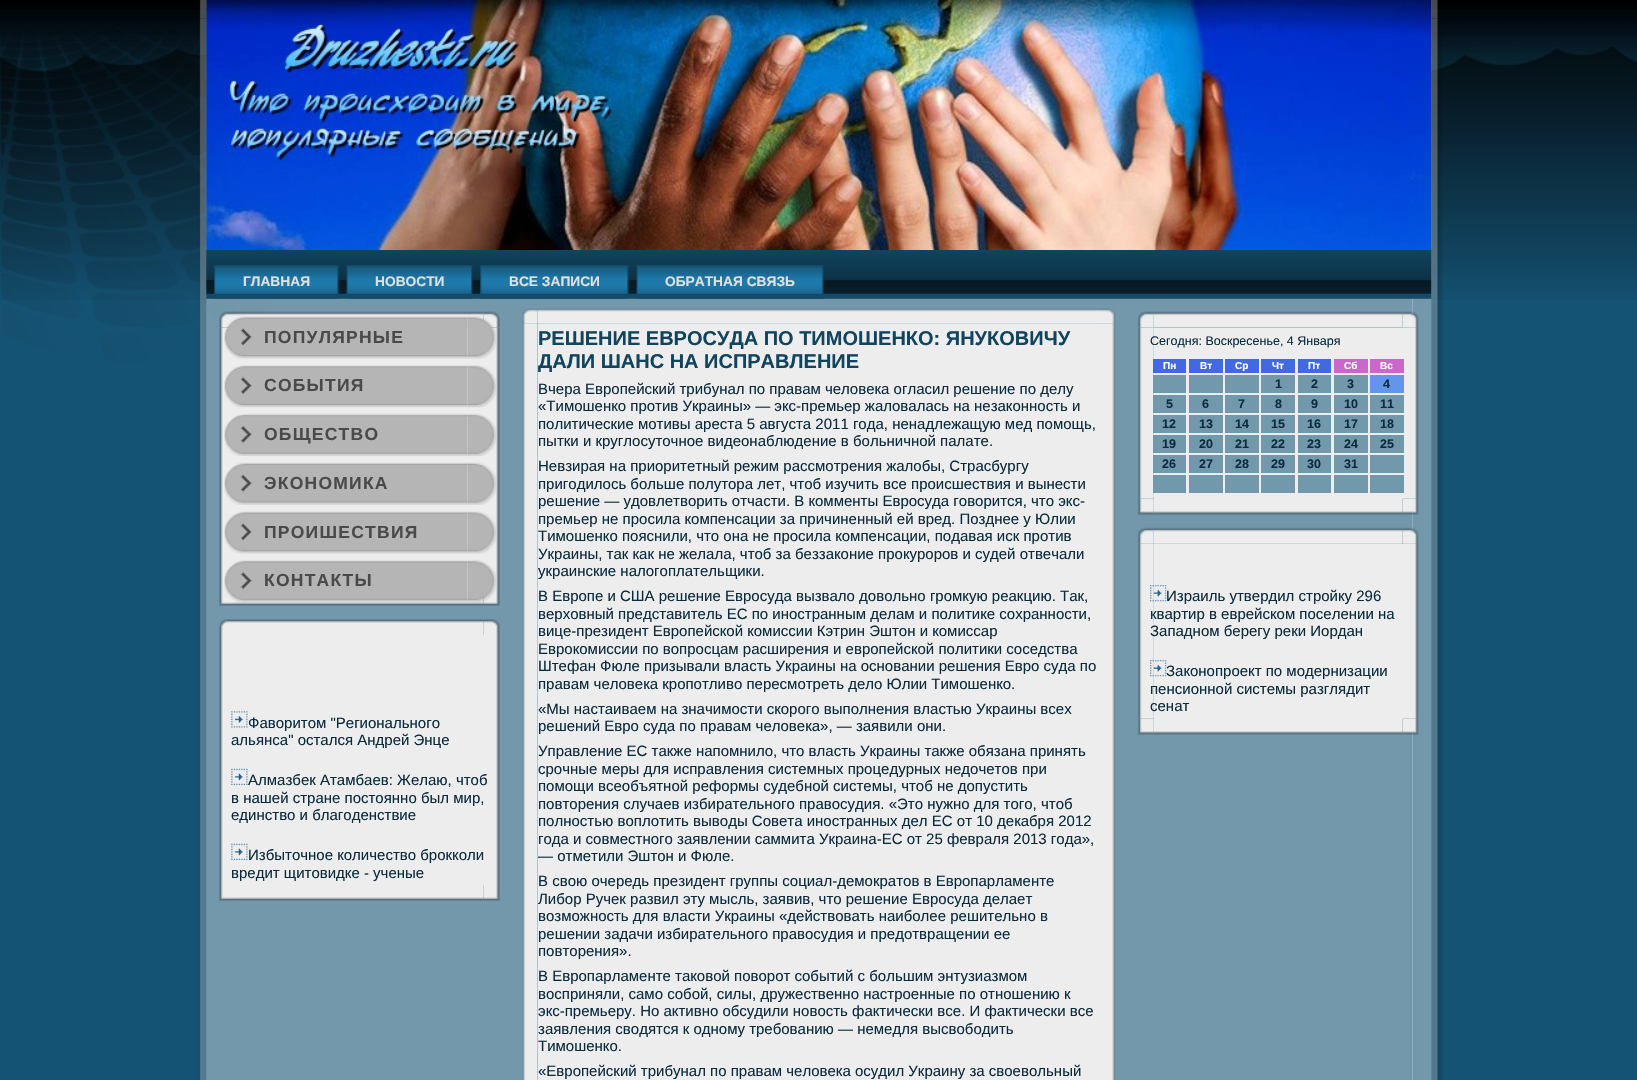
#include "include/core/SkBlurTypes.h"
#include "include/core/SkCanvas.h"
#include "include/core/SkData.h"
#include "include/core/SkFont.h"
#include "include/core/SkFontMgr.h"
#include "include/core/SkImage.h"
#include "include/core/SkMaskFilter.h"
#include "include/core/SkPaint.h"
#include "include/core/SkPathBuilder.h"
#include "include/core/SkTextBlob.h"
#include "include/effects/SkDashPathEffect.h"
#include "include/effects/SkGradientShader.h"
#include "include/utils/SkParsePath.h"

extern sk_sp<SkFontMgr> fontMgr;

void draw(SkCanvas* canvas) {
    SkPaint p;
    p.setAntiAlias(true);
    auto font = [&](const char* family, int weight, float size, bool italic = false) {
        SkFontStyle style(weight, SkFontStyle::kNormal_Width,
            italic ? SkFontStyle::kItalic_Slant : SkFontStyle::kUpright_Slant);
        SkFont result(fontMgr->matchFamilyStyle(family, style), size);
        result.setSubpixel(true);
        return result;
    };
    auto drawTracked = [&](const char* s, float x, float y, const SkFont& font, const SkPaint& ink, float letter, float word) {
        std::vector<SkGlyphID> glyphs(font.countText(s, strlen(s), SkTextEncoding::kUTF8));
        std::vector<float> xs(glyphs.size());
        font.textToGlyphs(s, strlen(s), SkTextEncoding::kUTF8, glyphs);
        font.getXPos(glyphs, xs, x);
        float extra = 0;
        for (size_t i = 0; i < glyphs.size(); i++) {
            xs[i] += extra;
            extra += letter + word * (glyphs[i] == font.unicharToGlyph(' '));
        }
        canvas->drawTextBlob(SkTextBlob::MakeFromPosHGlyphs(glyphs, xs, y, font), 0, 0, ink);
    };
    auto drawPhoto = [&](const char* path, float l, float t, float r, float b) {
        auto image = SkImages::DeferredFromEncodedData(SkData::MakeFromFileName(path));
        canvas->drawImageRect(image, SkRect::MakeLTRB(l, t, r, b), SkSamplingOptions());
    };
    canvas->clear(0xFF155375);
    drawPhoto("media/1.png", 0, 0, 1637, 300);
    drawPhoto("media/2.png", 1, 26, 297, 364);
    drawPhoto("media/3.png", 199, 0, 207, 19);
    drawPhoto("media/4.png", 1431, 0, 1438, 19);
    drawPhoto("media/5.png", 198, 18, 225, 1080);
    drawPhoto("media/63.png", 1412, 18, 1443, 1080);
    drawPhoto("media/6.png", 206, 0, 1432, 250);
    p.setColor(0x66FFFFFF);
    canvas->drawRect(SkRect::MakeLTRB(225, 298, 1413, 1080), p);
    drawPhoto("media/7.png", 206, 250, 1432, 299);
    drawPhoto("media/8.png", 214, 265, 338, 299);
    auto font1 = font("Liberation Sans", 700, 13.75f);
    p.setColor(0xFFE0E0E0);
    canvas->drawString("ГЛАВНАЯ", 243, 286, font1, p);
    drawPhoto("media/9.png", 337, 265, 339, 299);
    drawPhoto("media/10.png", 346, 265, 472, 299);
    canvas->drawString("НОВОСТИ", 375, 286, font1, p);
    drawPhoto("media/11.png", 471, 265, 473, 299);
    drawPhoto("media/12.png", 480, 265, 628, 299);
    canvas->drawString("ВСЕ ЗАПИСИ", 509, 286, font1, p);
    drawPhoto("media/9.png", 627, 265, 629, 299);
    drawPhoto("media/13.png", 636, 265, 823, 299);
    canvas->drawString("ОБРАТНАЯ СВЯЗЬ", 665, 286, font1, p);
    drawPhoto("media/9.png", 822, 265, 824, 299);
    drawPhoto("media/14.png", 219, 311, 235, 328);
    drawPhoto("media/16.png", 483, 311, 500, 328);
    drawPhoto("media/15.png", 235, 311, 484, 328);
    drawPhoto("media/17.png", 219, 327, 235, 590);
    p.setColor(0xFFEDEDED);
    canvas->drawRect(SkRect::MakeLTRB(235, 328, 484, 590), p);
    drawPhoto("media/18.png", 484, 327, 500, 590);
    drawPhoto("media/19.png", 224, 316, 468, 359);
    drawPhoto("media/20.png", 467, 316, 496, 359);
    auto font2 = font("Liberation Sans", 700, 17.5f);
    p.setColor(0xFF4A4A4A);
    drawTracked("ПОПУЛЯРНЫЕ", 264, 343, font2, p, 1.25f, 0);
    drawPhoto("media/21.png", 224, 365, 468, 408);
    drawPhoto("media/22.png", 467, 365, 496, 408);
    drawTracked("СОБЫТИЯ", 264, 391, font2, p, 1.25f, 0);
    drawPhoto("media/23.png", 224, 413, 468, 456);
    drawPhoto("media/24.png", 467, 413, 496, 456);
    drawTracked("ОБЩЕСТВО", 264, 440, font2, p, 1.25f, 0);
    drawPhoto("media/25.png", 224, 462, 468, 505);
    drawPhoto("media/26.png", 467, 462, 496, 505);
    drawTracked("ЭКОНОМИКА", 264, 489, font2, p, 1.25f, 0);
    drawPhoto("media/27.png", 224, 511, 468, 554);
    drawPhoto("media/28.png", 467, 511, 496, 554);
    drawTracked("ПРОИШЕСТВИЯ", 264, 538, font2, p, 1.25f, 0);
    drawPhoto("media/31.png", 219, 590, 235, 606);
    drawPhoto("media/33.png", 483, 590, 500, 606);
    drawPhoto("media/32.png", 235, 590, 484, 606);
    drawPhoto("media/29.png", 224, 560, 468, 603);
    drawPhoto("media/30.png", 467, 560, 496, 603);
    drawTracked("КОНТАКТЫ", 264, 586, font2, p, 1.25f, 0);
    drawPhoto("media/34.png", 219, 619, 235, 635);
    drawPhoto("media/36.png", 483, 619, 500, 635);
    drawPhoto("media/35.png", 235, 619, 484, 635);
    drawPhoto("media/37.png", 219, 635, 235, 885);
    p.setColor(0xFFEDEDED);
    canvas->drawRect(SkRect::MakeLTRB(235, 635, 484, 885), p);
    drawPhoto("media/38.png", 484, 635, 500, 885);
    drawPhoto("media/39.png", 231, 711, 248, 728);
    auto font3 = font("Liberation Sans", 400, 15);
    p.setColor(0xFF0B2B3D);
    canvas->drawString("Фаворитом \"Регионального", 248, 728, font3, p);
    canvas->drawString("альянса\" остался Андрей Энце", 231, 745, font3, p);
    drawPhoto("media/40.png", 231, 768, 248, 785);
    {
        const struct { const char* s; float x, y; } items[] = {
            {"Алмазбек Атамбаев: Желаю, чтоб", 248, 785},
            {"в нашей стране постоянно был мир,", 231, 803},
            {"единство и благоденствие", 231, 820},
        };
        for (auto [s, x, y] : items) {
            canvas->drawString(s, x, y, font3, p);
        }
    }
    drawPhoto("media/40.png", 231, 843, 248, 860);
    canvas->drawString("Избыточное количество брокколи", 248, 860, font3, p);
    canvas->drawString("вредит щитовидке - ученые", 231, 878, font3, p);
    drawPhoto("media/41.png", 219, 885, 235, 901);
    drawPhoto("media/42.png", 483, 885, 500, 901);
    drawPhoto("media/32.png", 235, 885, 484, 901);
    drawPhoto("media/43.png", 522, 308, 538, 324);
    drawPhoto("media/44.png", 537, 308, 1100, 324);
    drawPhoto("media/45.png", 1100, 308, 1116, 324);
    drawPhoto("media/46.png", 522, 324, 538, 1080);
    p.setColor(0xFFEDEDED);
    canvas->drawRect(SkRect::MakeLTRB(538, 324, 1100, 1080), p);
    drawPhoto("media/47.png", 1100, 324, 1116, 1080);
    auto font4 = font("Liberation Sans", 700, 20);
    p.setColor(0xFF11445F);
    canvas->drawString("РЕШЕНИЕ ЕВРОСУДА ПО ТИМОШЕНКО: ЯНУКОВИЧУ", 538, 345, font4, p);
    canvas->drawString("ДАЛИ ШАНС НА ИСПРАВЛЕНИЕ", 538, 368, font4, p);
    p.setColor(0xFF0B2B3D);
    {
        const struct { const char* s; float x, y; } items[] = {
            {"Вчера Европейский трибунал по правам человека огласил решение по делу", 538, 394},
            {"«Тимошенко против Украины» — экс-премьер жаловалась на незаконность и", 538, 411},
            {"политические мотивы ареста 5 августа 2011 года, ненадлежащую мед помощь,", 538, 429},
            {"пытки и круглосуточное видеонаблюдение в больничной палате.", 538, 446},
            {"Невзирая на приоритетный режим рассмотрения жалобы, Страсбургу", 538, 471},
            {"пригодилось больше полутора лет, чтоб изучить все происшествия и вынести", 538, 489},
            {"решение — удовлетворить отчасти. В комменты Евросуда говорится, что экс-", 538, 506},
            {"премьер не просила компенсации за причиненный ей вред. Позднее у Юлии", 538, 524},
            {"Тимошенко пояснили, что она не просила компенсации, подавая иск против", 538, 541},
            {"Украины, так как не желала, чтоб за беззаконие прокуроров и судей отвечали", 538, 559},
            {"украинские налогоплательщики.", 538, 576},
            {"В Европе и США решение Евросуда вызвало довольно громкую реакцию. Так,", 538, 601},
            {"верховный представитель ЕС по иностранным делам и политике сохранности,", 538, 619},
            {"вице-президент Европейской комиссии Кэтрин Эштон и комиссар", 538, 636},
            {"Еврокомиссии по вопросцам расширения и европейской политики соседства", 538, 654},
            {"Штефан Фюле призывали власть Украины на основании решения Евро суда по", 538, 671},
            {"правам человека кропотливо пересмотреть дело Юлии Тимошенко.", 538, 689},
            {"«Мы настаиваем на значимости скорого выполнения властью Украины всех", 538, 714},
            {"решений Евро суда по правам человека», — заявили они.", 538, 731},
            {"Управление ЕС также напомнило, что власть Украины также обязана принять", 538, 756},
            {"срочные меры для исправления системных процедурных недочетов при", 538, 774},
            {"помощи всеобъятной реформы судебной системы, чтоб не допустить", 538, 791},
            {"повторения случаев избирательного правосудия. «Это нужно для того, чтоб", 538, 809},
            {"полностью воплотить выводы Совета иностранных дел ЕС от 10 декабря 2012", 538, 826},
            {"года и совместного заявлении саммита Украина-ЕС от 25 февраля 2013 года»,", 538, 844},
            {"— отметили Эштон и Фюле.", 538, 861},
            {"В свою очередь президент группы социал-демократов в Европарламенте", 538, 886},
            {"Либор Ручек развил эту мысль, заявив, что решение Евросуда делает", 538, 904},
            {"возможность для власти Украины «действовать наиболее решительно в", 538, 921},
            {"решении задачи избирательного правосудия и предотвращении ее", 538, 939},
            {"повторения».", 538, 956},
            {"В Европарламенте таковой поворот событий с большим энтузиазмом", 538, 981},
            {"восприняли, само собой, силы, дружественно настроенные по отношению к", 538, 999},
            {"экс-премьеру. Но активно обсудили новость фактически все. И фактически все", 538, 1016},
            {"заявления сводятся к одному требованию — немедля высвободить", 538, 1034},
            {"Тимошенко.", 538, 1051},
            {"«Европейский трибунал по правам человека осудил Украину за своевольный", 538, 1076},
        };
        for (auto [s, x, y] : items) {
            canvas->drawString(s, x, y, font3, p);
        }
    }
    drawPhoto("media/48.png", 1137, 311, 1154, 328);
    drawPhoto("media/50.png", 1402, 311, 1419, 328);
    drawPhoto("media/49.png", 1154, 311, 1403, 328);
    drawPhoto("media/53.png", 1137, 498, 1154, 515);
    drawPhoto("media/51.png", 1137, 327, 1154, 499);
    drawPhoto("media/55.png", 1402, 498, 1419, 515);
    drawPhoto("media/52.png", 1402, 327, 1419, 499);
    p.setColor(0xFFEDEDED);
    canvas->drawRect(SkRect::MakeLTRB(1154, 328, 1403, 499), p);
    auto font5 = font("Liberation Sans", 400, 12.5f);
    p.setColor(0xFF0B2B3D);
    canvas->drawString("Сегодня: Воскресенье, 4 Января", 1150, 345, font5, p);
    p.setColor(0xFF4169E1);
    canvas->drawRect(SkRect::MakeLTRB(1153, 359, 1186, 373), p);
    auto font6 = font("Liberation Sans", 700, 10);
    p.setColor(0xFFFFFFFF);
    canvas->drawString("Пн", 1163, 369, font6, p);
    p.setColor(0xFF4169E1);
    canvas->drawRect(SkRect::MakeLTRB(1189, 359, 1223, 373), p);
    p.setColor(0xFFFFFFFF);
    canvas->drawString("Вт", 1200, 369, font6, p);
    p.setColor(0xFF4169E1);
    canvas->drawRect(SkRect::MakeLTRB(1225, 359, 1259, 373), p);
    p.setColor(0xFFFFFFFF);
    canvas->drawString("Ср", 1235, 369, font6, p);
    p.setColor(0xFF4169E1);
    canvas->drawRect(SkRect::MakeLTRB(1261, 359, 1295, 373), p);
    p.setColor(0xFFFFFFFF);
    canvas->drawString("Чт", 1272, 369, font6, p);
    p.setColor(0xFF4169E1);
    canvas->drawRect(SkRect::MakeLTRB(1298, 359, 1331, 373), p);
    p.setColor(0xFFFFFFFF);
    canvas->drawString("Пт", 1308, 369, font6, p);
    p.setColor(0xFFCC66CC);
    canvas->drawRect(SkRect::MakeLTRB(1334, 359, 1368, 373), p);
    p.setColor(0xFFFFFFFF);
    canvas->drawString("Сб", 1344, 369, font6, p);
    p.setColor(0xFFCC66CC);
    canvas->drawRect(SkRect::MakeLTRB(1370, 359, 1404, 373), p);
    p.setColor(0xFFFFFFFF);
    canvas->drawString("Вс", 1380, 369, font6, p);
    {
        const struct { float l, t, r, b; SkColor color; } items[] = {
            {1153, 375, 1186, 393, 0xFF7298AC},
            {1189, 375, 1223, 393, 0xFF7298AC},
            {1225, 375, 1259, 393, 0xFF7298AC},
            {1261, 375, 1295, 393, 0xFF7298AC},
        };
        for (auto [l, t, r, b, color] : items) {
            p.setColor(color);
            canvas->drawRect(SkRect::MakeLTRB(l, t, r, b), p);
        }
    }
    auto font7 = font("Liberation Sans", 700, 12.5f);
    p.setColor(0xFF0B2B3D);
    canvas->drawString("1", 1275, 388, font7, p);
    p.setColor(0xFF7298AC);
    canvas->drawRect(SkRect::MakeLTRB(1298, 375, 1331, 393), p);
    p.setColor(0xFF0B2B3D);
    canvas->drawString("2", 1311, 388, font7, p);
    p.setColor(0xFF7298AC);
    canvas->drawRect(SkRect::MakeLTRB(1334, 375, 1368, 393), p);
    p.setColor(0xFF0B2B3D);
    canvas->drawString("3", 1347, 388, font7, p);
    p.setColor(0xFF6495ED);
    canvas->drawRect(SkRect::MakeLTRB(1370, 375, 1404, 393), p);
    p.setColor(0xFF0B2B3D);
    canvas->drawString("4", 1383, 388, font7, p);
    p.setColor(0xFF7298AC);
    canvas->drawRect(SkRect::MakeLTRB(1153, 395, 1186, 413), p);
    p.setColor(0xFF0B2B3D);
    canvas->drawString("5", 1166, 408, font7, p);
    p.setColor(0xFF7298AC);
    canvas->drawRect(SkRect::MakeLTRB(1189, 395, 1223, 413), p);
    p.setColor(0xFF0B2B3D);
    canvas->drawString("6", 1202, 408, font7, p);
    p.setColor(0xFF7298AC);
    canvas->drawRect(SkRect::MakeLTRB(1225, 395, 1259, 413), p);
    p.setColor(0xFF0B2B3D);
    canvas->drawString("7", 1238, 408, font7, p);
    p.setColor(0xFF7298AC);
    canvas->drawRect(SkRect::MakeLTRB(1261, 395, 1295, 413), p);
    p.setColor(0xFF0B2B3D);
    canvas->drawString("8", 1275, 408, font7, p);
    p.setColor(0xFF7298AC);
    canvas->drawRect(SkRect::MakeLTRB(1298, 395, 1331, 413), p);
    p.setColor(0xFF0B2B3D);
    canvas->drawString("9", 1311, 408, font7, p);
    p.setColor(0xFF7298AC);
    canvas->drawRect(SkRect::MakeLTRB(1334, 395, 1368, 413), p);
    p.setColor(0xFF0B2B3D);
    canvas->drawString("10", 1344, 408, font7, p);
    p.setColor(0xFF7298AC);
    canvas->drawRect(SkRect::MakeLTRB(1370, 395, 1404, 413), p);
    p.setColor(0xFF0B2B3D);
    canvas->drawString("11", 1380, 408, font7, p);
    p.setColor(0xFF7298AC);
    canvas->drawRect(SkRect::MakeLTRB(1153, 415, 1186, 433), p);
    p.setColor(0xFF0B2B3D);
    canvas->drawString("12", 1162, 428, font7, p);
    p.setColor(0xFF7298AC);
    canvas->drawRect(SkRect::MakeLTRB(1189, 415, 1223, 433), p);
    p.setColor(0xFF0B2B3D);
    canvas->drawString("13", 1199, 428, font7, p);
    p.setColor(0xFF7298AC);
    canvas->drawRect(SkRect::MakeLTRB(1225, 415, 1259, 433), p);
    p.setColor(0xFF0B2B3D);
    canvas->drawString("14", 1235, 428, font7, p);
    p.setColor(0xFF7298AC);
    canvas->drawRect(SkRect::MakeLTRB(1261, 415, 1295, 433), p);
    p.setColor(0xFF0B2B3D);
    canvas->drawString("15", 1271, 428, font7, p);
    p.setColor(0xFF7298AC);
    canvas->drawRect(SkRect::MakeLTRB(1298, 415, 1331, 433), p);
    p.setColor(0xFF0B2B3D);
    canvas->drawString("16", 1307, 428, font7, p);
    p.setColor(0xFF7298AC);
    canvas->drawRect(SkRect::MakeLTRB(1334, 415, 1368, 433), p);
    p.setColor(0xFF0B2B3D);
    canvas->drawString("17", 1344, 428, font7, p);
    p.setColor(0xFF7298AC);
    canvas->drawRect(SkRect::MakeLTRB(1370, 415, 1404, 433), p);
    p.setColor(0xFF0B2B3D);
    canvas->drawString("18", 1380, 428, font7, p);
    p.setColor(0xFF7298AC);
    canvas->drawRect(SkRect::MakeLTRB(1153, 435, 1186, 453), p);
    p.setColor(0xFF0B2B3D);
    canvas->drawString("19", 1162, 448, font7, p);
    p.setColor(0xFF7298AC);
    canvas->drawRect(SkRect::MakeLTRB(1189, 435, 1223, 453), p);
    p.setColor(0xFF0B2B3D);
    canvas->drawString("20", 1199, 448, font7, p);
    p.setColor(0xFF7298AC);
    canvas->drawRect(SkRect::MakeLTRB(1225, 435, 1259, 453), p);
    p.setColor(0xFF0B2B3D);
    canvas->drawString("21", 1235, 448, font7, p);
    p.setColor(0xFF7298AC);
    canvas->drawRect(SkRect::MakeLTRB(1261, 435, 1295, 453), p);
    p.setColor(0xFF0B2B3D);
    canvas->drawString("22", 1271, 448, font7, p);
    p.setColor(0xFF7298AC);
    canvas->drawRect(SkRect::MakeLTRB(1298, 435, 1331, 453), p);
    p.setColor(0xFF0B2B3D);
    canvas->drawString("23", 1307, 448, font7, p);
    p.setColor(0xFF7298AC);
    canvas->drawRect(SkRect::MakeLTRB(1334, 435, 1368, 453), p);
    p.setColor(0xFF0B2B3D);
    canvas->drawString("24", 1344, 448, font7, p);
    p.setColor(0xFF7298AC);
    canvas->drawRect(SkRect::MakeLTRB(1370, 435, 1404, 453), p);
    p.setColor(0xFF0B2B3D);
    canvas->drawString("25", 1380, 448, font7, p);
    p.setColor(0xFF7298AC);
    canvas->drawRect(SkRect::MakeLTRB(1153, 455, 1186, 473), p);
    p.setColor(0xFF0B2B3D);
    canvas->drawString("26", 1162, 468, font7, p);
    p.setColor(0xFF7298AC);
    canvas->drawRect(SkRect::MakeLTRB(1189, 455, 1223, 473), p);
    p.setColor(0xFF0B2B3D);
    canvas->drawString("27", 1199, 468, font7, p);
    p.setColor(0xFF7298AC);
    canvas->drawRect(SkRect::MakeLTRB(1225, 455, 1259, 473), p);
    p.setColor(0xFF0B2B3D);
    canvas->drawString("28", 1235, 468, font7, p);
    p.setColor(0xFF7298AC);
    canvas->drawRect(SkRect::MakeLTRB(1261, 455, 1295, 473), p);
    p.setColor(0xFF0B2B3D);
    canvas->drawString("29", 1271, 468, font7, p);
    p.setColor(0xFF7298AC);
    canvas->drawRect(SkRect::MakeLTRB(1298, 455, 1331, 473), p);
    p.setColor(0xFF0B2B3D);
    canvas->drawString("30", 1307, 468, font7, p);
    p.setColor(0xFF7298AC);
    canvas->drawRect(SkRect::MakeLTRB(1334, 455, 1368, 473), p);
    p.setColor(0xFF0B2B3D);
    canvas->drawString("31", 1344, 468, font7, p);
    {
        const struct { float l, t, r, b; SkColor color; } items[] = {
            {1370, 455, 1404, 473, 0xFF7298AC},
            {1153, 475, 1186, 493, 0xFF7298AC},
            {1189, 475, 1223, 493, 0xFF7298AC},
            {1225, 475, 1259, 493, 0xFF7298AC},
            {1261, 475, 1295, 493, 0xFF7298AC},
            {1298, 475, 1331, 493, 0xFF7298AC},
            {1334, 475, 1368, 493, 0xFF7298AC},
            {1370, 475, 1404, 493, 0xFF7298AC},
        };
        for (auto [l, t, r, b, color] : items) {
            p.setColor(color);
            canvas->drawRect(SkRect::MakeLTRB(l, t, r, b), p);
        }
    }
    drawPhoto("media/54.png", 1154, 499, 1403, 515);
    drawPhoto("media/56.png", 1137, 527, 1154, 544);
    drawPhoto("media/58.png", 1402, 527, 1419, 544);
    drawPhoto("media/57.png", 1154, 527, 1403, 544);
    drawPhoto("media/53.png", 1137, 718, 1154, 735);
    drawPhoto("media/59.png", 1137, 544, 1154, 719);
    drawPhoto("media/55.png", 1402, 718, 1419, 735);
    p.setColor(0xFFEDEDED);
    canvas->drawRect(SkRect::MakeLTRB(1154, 544, 1403, 719), p);
    drawPhoto("media/60.png", 1403, 544, 1419, 719);
    drawPhoto("media/61.png", 1150, 584, 1167, 602);
    p.setColor(0xFF0B2B3D);
    {
        const struct { const char* s; float x, y; } items[] = {
            {"Израиль утвердил стройку 296", 1166, 601},
            {"квартир в еврейском поселении на", 1150, 619},
            {"Западном берегу реки Иордан", 1150, 636},
        };
        for (auto [s, x, y] : items) {
            canvas->drawString(s, x, y, font3, p);
        }
    }
    drawPhoto("media/62.png", 1150, 659, 1167, 677);
    {
        const struct { const char* s; float x, y; } items[] = {
            {"Законопроект по модернизации", 1166, 676},
            {"пенсионной системы разглядит", 1150, 694},
            {"сенат", 1150, 711},
        };
        for (auto [s, x, y] : items) {
            canvas->drawString(s, x, y, font3, p);
        }
    }
    drawPhoto("media/54.png", 1154, 719, 1403, 735);
}
